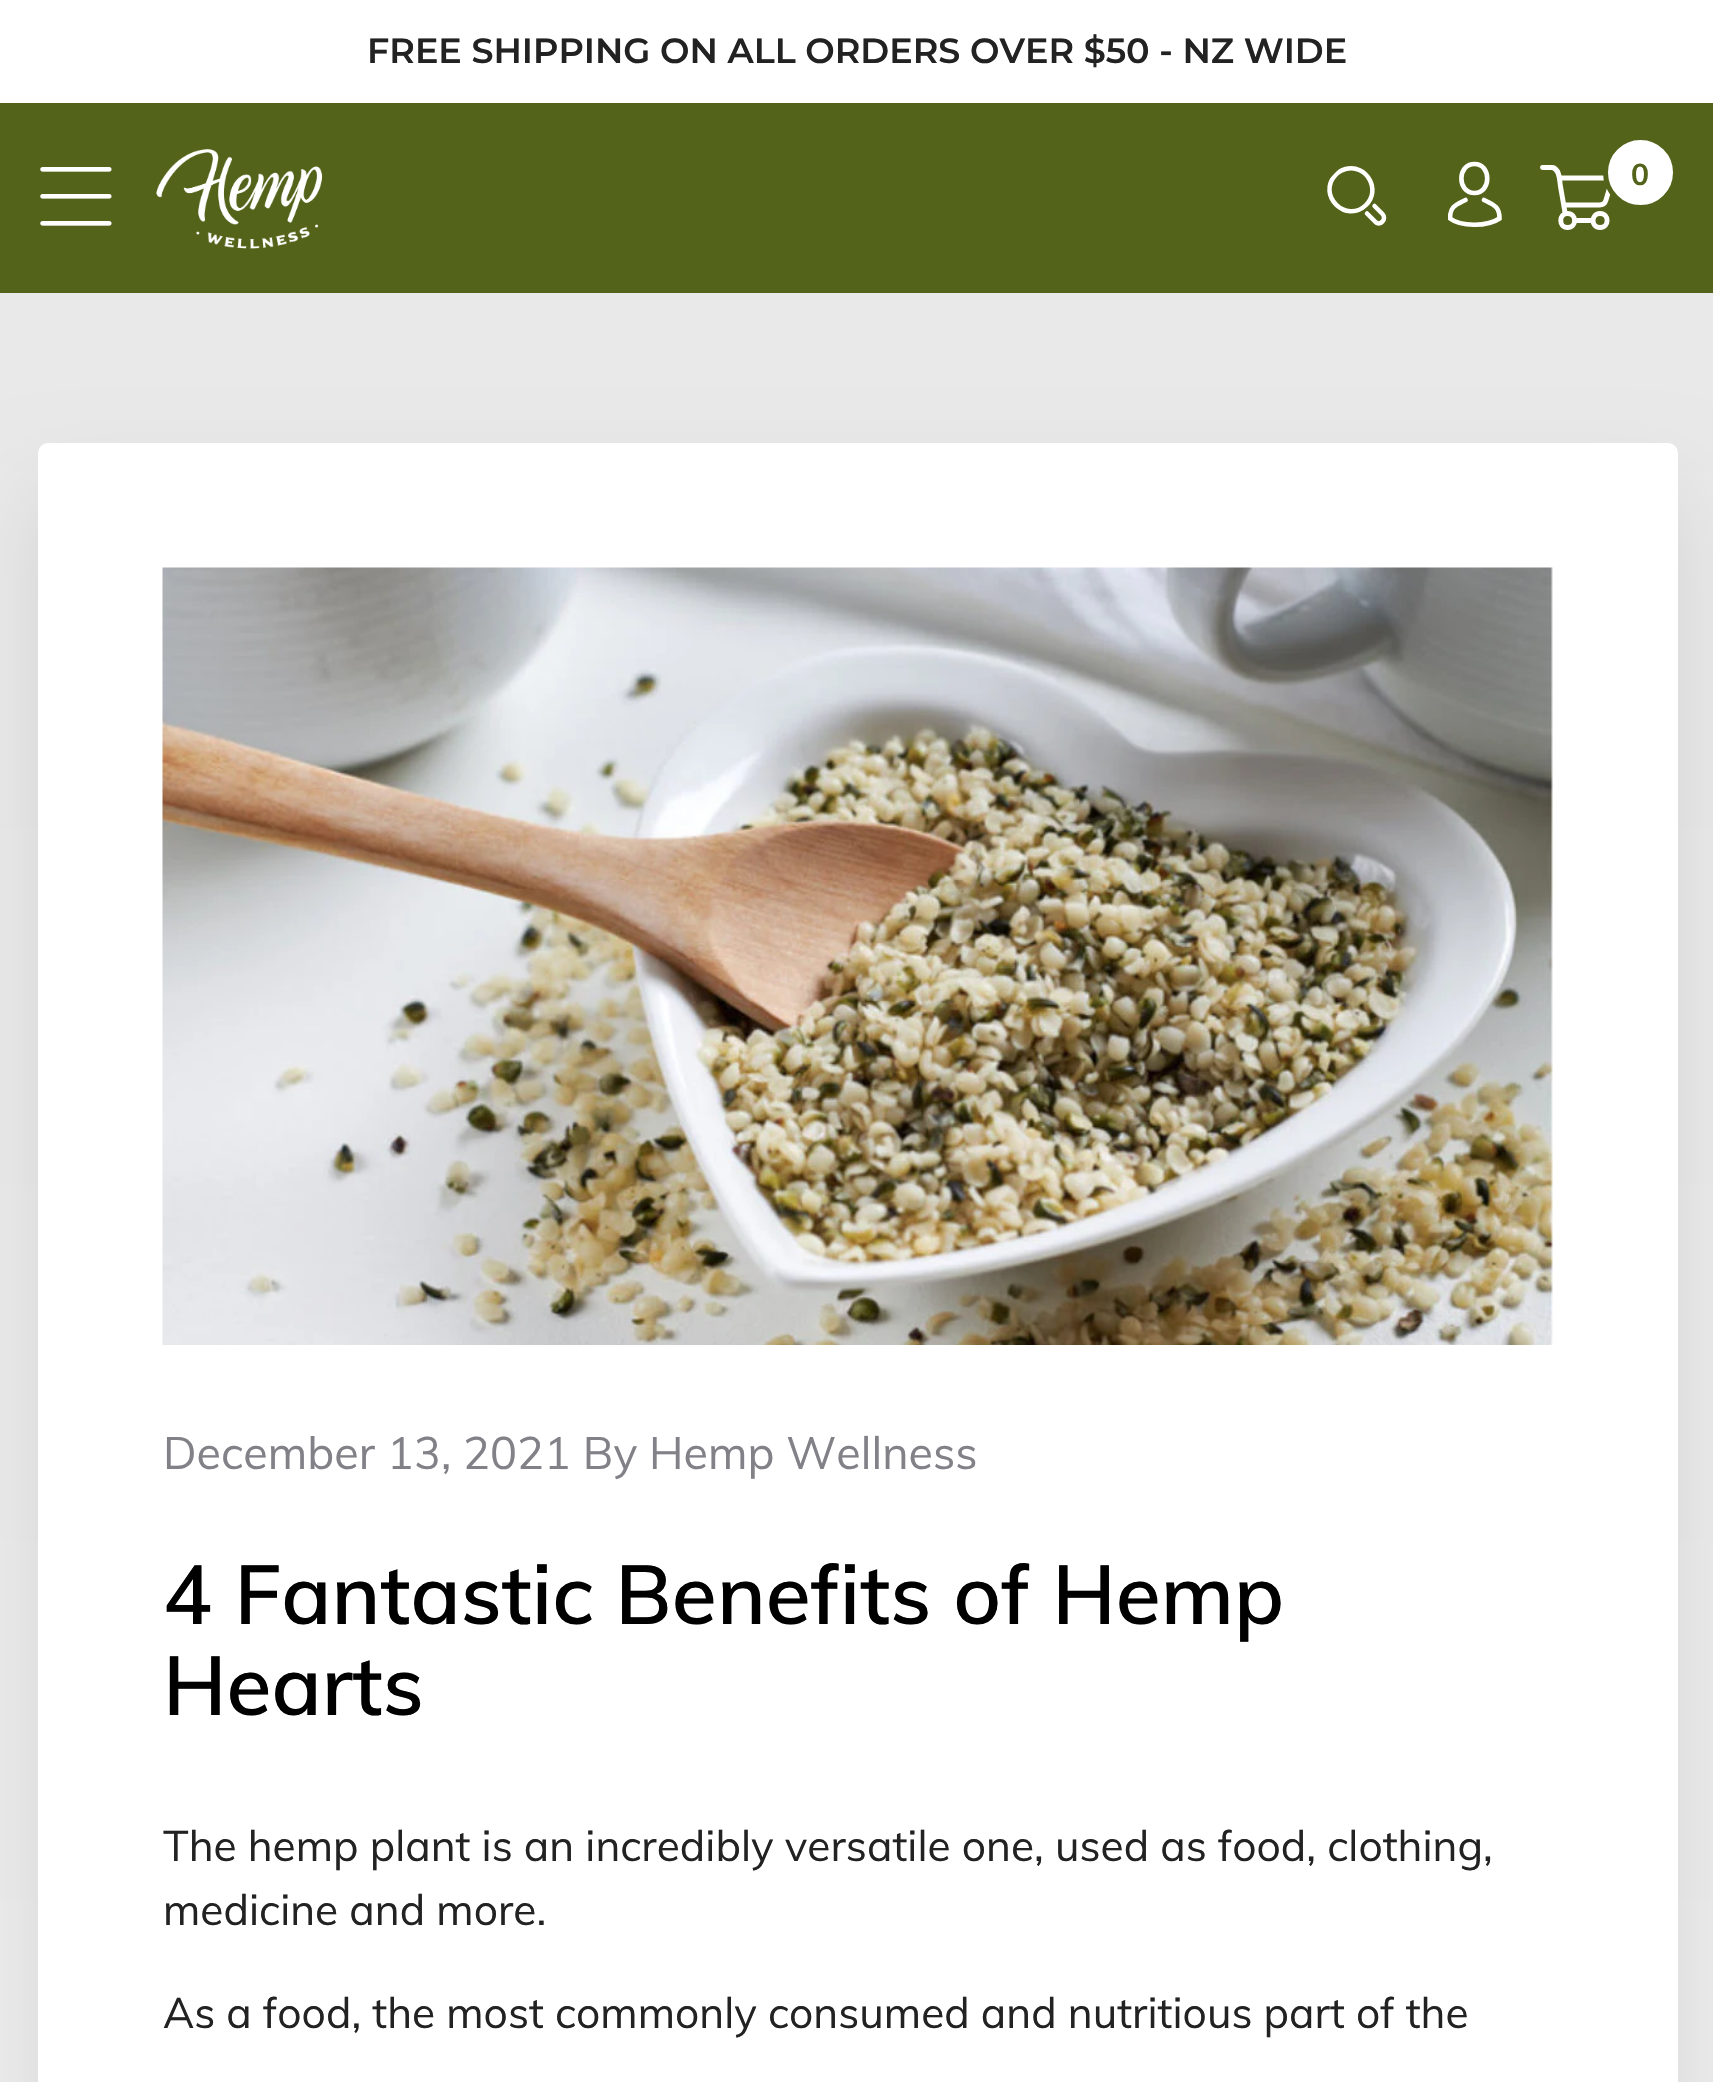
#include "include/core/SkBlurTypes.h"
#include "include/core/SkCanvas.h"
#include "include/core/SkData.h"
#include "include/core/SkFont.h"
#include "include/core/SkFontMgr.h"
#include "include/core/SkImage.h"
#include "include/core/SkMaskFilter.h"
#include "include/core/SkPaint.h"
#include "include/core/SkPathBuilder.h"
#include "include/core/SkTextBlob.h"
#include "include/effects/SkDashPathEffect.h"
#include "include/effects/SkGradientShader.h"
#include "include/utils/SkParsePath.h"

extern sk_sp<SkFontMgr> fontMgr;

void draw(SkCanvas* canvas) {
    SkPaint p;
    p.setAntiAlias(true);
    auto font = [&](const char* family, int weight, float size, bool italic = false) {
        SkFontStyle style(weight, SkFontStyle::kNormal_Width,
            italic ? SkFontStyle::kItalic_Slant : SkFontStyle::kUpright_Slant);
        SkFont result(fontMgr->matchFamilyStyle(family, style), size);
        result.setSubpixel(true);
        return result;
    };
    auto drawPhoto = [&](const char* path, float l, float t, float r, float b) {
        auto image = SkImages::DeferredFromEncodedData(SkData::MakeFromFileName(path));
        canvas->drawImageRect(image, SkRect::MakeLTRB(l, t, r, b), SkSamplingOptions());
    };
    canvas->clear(0xFFFFFFFF);
    p.setColor(0xFF53641A);
    canvas->drawRect(SkRect::MakeLTRB(0, 103, 1713, 293), p);
    auto font1 = font("Montserrat", 600, 35);
    p.setColor(0xFF222222);
    canvas->drawString("FREE SHIPPING ON ALL ORDERS OVER $50 - NZ WIDE", 367, 63, font1, p);
    drawPhoto("media/1.png", 40, 167, 112, 226);
    drawPhoto("media/2.png", 156, 149, 323, 249);
    canvas->save();
    canvas->clipPath(SkPathBuilder().moveTo(1310.5f, 197.5f).lineTo(1363.5f, 144.5f).lineTo(1416.5f, 197.5f).lineTo(1363.5f, 250.5f).close().detach(), true);
    p.setStyle(SkPaint::kStroke_Style);
    p.setStrokeWidth(4.5f);
    p.setColor(0xFFFFFFFF);
    canvas->drawPath(SkPathBuilder().moveTo(1366, 205).cubicTo(1381.5f, 190, 1366.5f, 163.5f, 1345.5f, 169).cubicTo(1342, 170, 1338, 172, 1335.5f, 175).cubicTo(1316.5f, 195.5f, 1346.5f, 224, 1366, 205).close().detach(), p);
    canvas->restore();
    p.setStrokeCap(SkPaint::kRound_Cap);
    canvas->drawPath(SkPathBuilder().moveTo(1374.5f, 206).lineTo(1382.5f, 214).cubicTo(1384.5f, 216, 1384.5f, 219.5f, 1382.5f, 221.5f).cubicTo(1380.5f, 224, 1377, 224, 1375, 221.5f).lineTo(1367, 213.5f).detach(), p);
    p.setStrokeWidth(4.6f);
    p.setStrokeCap(SkPaint::kButt_Cap);
    canvas->drawPath(SkPathBuilder().moveTo(1474.5f, 193).cubicTo(1491.5f, 193, 1491.5f, 164, 1474.5f, 164).cubicTo(1457, 164, 1457, 193, 1474.5f, 193).close().detach(), p);
    canvas->save();
    canvas->clipRect(SkRect::MakeLTRB(1448, 160, 1503, 228));
    p.setStrokeCap(SkPaint::kRound_Cap);
    canvas->drawPath(SkPathBuilder().moveTo(1484, 200).cubicTo(1494, 205, 1499.5f, 206.5f, 1499.5f, 218.5f).cubicTo(1488, 226.5f, 1461, 227, 1450, 218.5f).cubicTo(1450, 206.5f, 1455.5f, 205, 1465.5f, 200).detach(), p);
    canvas->restore();
    p.setStrokeWidth(4.9f);
    canvas->drawPath(SkPathBuilder().moveTo(1592.5f, 220.5f).lineTo(1575, 220.5f).moveTo(1565, 212.5f).lineTo(1560.5f, 186.5f).cubicTo(1559.5f, 181, 1560, 169, 1552.5f, 167.5f).lineTo(1542.5f, 167.5f).detach(), p);
    canvas->drawPath(SkPathBuilder().moveTo(1567.5f, 227.5f).cubicTo(1577, 227.5f, 1577, 213.5f, 1567.5f, 213.5f).cubicTo(1558.5f, 213.5f, 1558.5f, 227.5f, 1567.5f, 227.5f).close().moveTo(1600, 227.5f).cubicTo(1609.5f, 227.5f, 1609.5f, 213.5f, 1600, 213.5f).cubicTo(1591, 213.5f, 1590.5f, 227.5f, 1600, 227.5f).close().moveTo(1612.5f, 178).lineTo(1606, 200).cubicTo(1605, 203.5f, 1603, 205, 1599.5f, 205).lineTo(1564.5f, 205).moveTo(1612.5f, 178).lineTo(1560.5f, 178).detach(), p);
    p.setStyle(SkPaint::kFill_Style);
    canvas->drawCircle(1640.5f, 172.5f, 35, p);
    p.setStyle(SkPaint::kStroke_Style);
    p.setStrokeWidth(5);
    p.setStrokeCap(SkPaint::kButt_Cap);
    p.setColor(0xFF53641A);
    canvas->drawCircle(1640.5f, 172.5f, 35, p);
    auto font2 = font("Muli", 700, 30);
    p.setStyle(SkPaint::kFill_Style);
    canvas->drawString("0", 1631, 185, font2, p);
    {
        const SkColor colors[] = {0xFFE9E9E9, 0xFFFFFFFF};
        const float stops[] = {0, 1};
        const SkPoint ends[] = {{857, 293}, {858, 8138}};
        p.setShader(SkGradientShader::MakeLinear(ends, colors, stops, 2, SkTileMode::kClamp));
        p.setAlpha(255);
    }
    canvas->drawRect(SkRect::MakeLTRB(0, 293, 1713, 2082), p);
    p.setShader(nullptr);
    p.setColor(0x1A000000);
    p.setMaskFilter(SkMaskFilter::MakeBlur(kNormal_SkBlurStyle, 44));
    canvas->drawRoundRect(SkRect::MakeLTRB(38, 493, 1678, 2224), 10, 10, p);
    p.setMaskFilter(nullptr);
    p.setColor(0xFFFFFFFF);
    canvas->drawRoundRect(SkRect::MakeLTRB(38, 443, 1678, 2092), 10, 10, p);
    drawPhoto("media/3.png", 162, 567, 1553, 1345);
    auto font3 = font("Muli", 400, 45);
    p.setColor(0xFF838188);
    canvas->drawString("December 13, 2021 By Hemp Wellness", 163, 1469, font3, p);
    auto font4 = font("Muli", 600, 82.5f);
    p.setColor(0xFF000000);
    canvas->drawString("4 Fantastic Benefits of Hemp", 163, 1624, font4, p);
    canvas->drawString("Hearts", 163, 1715, font4, p);
    auto font5 = font("Muli", 400, 42.5f);
    p.setColor(0xFF222222);
    {
        const struct { const char* s; float x, y; } items[] = {
            {"The hemp plant is an incredibly versatile one, used as food, clothing,", 163, 1861},
            {"medicine and more.", 163, 1925},
            {"As a food, the most commonly consumed and nutritious part of the", 163, 2028},
        };
        for (auto [s, x, y] : items) {
            canvas->drawString(s, x, y, font5, p);
        }
    }
}
